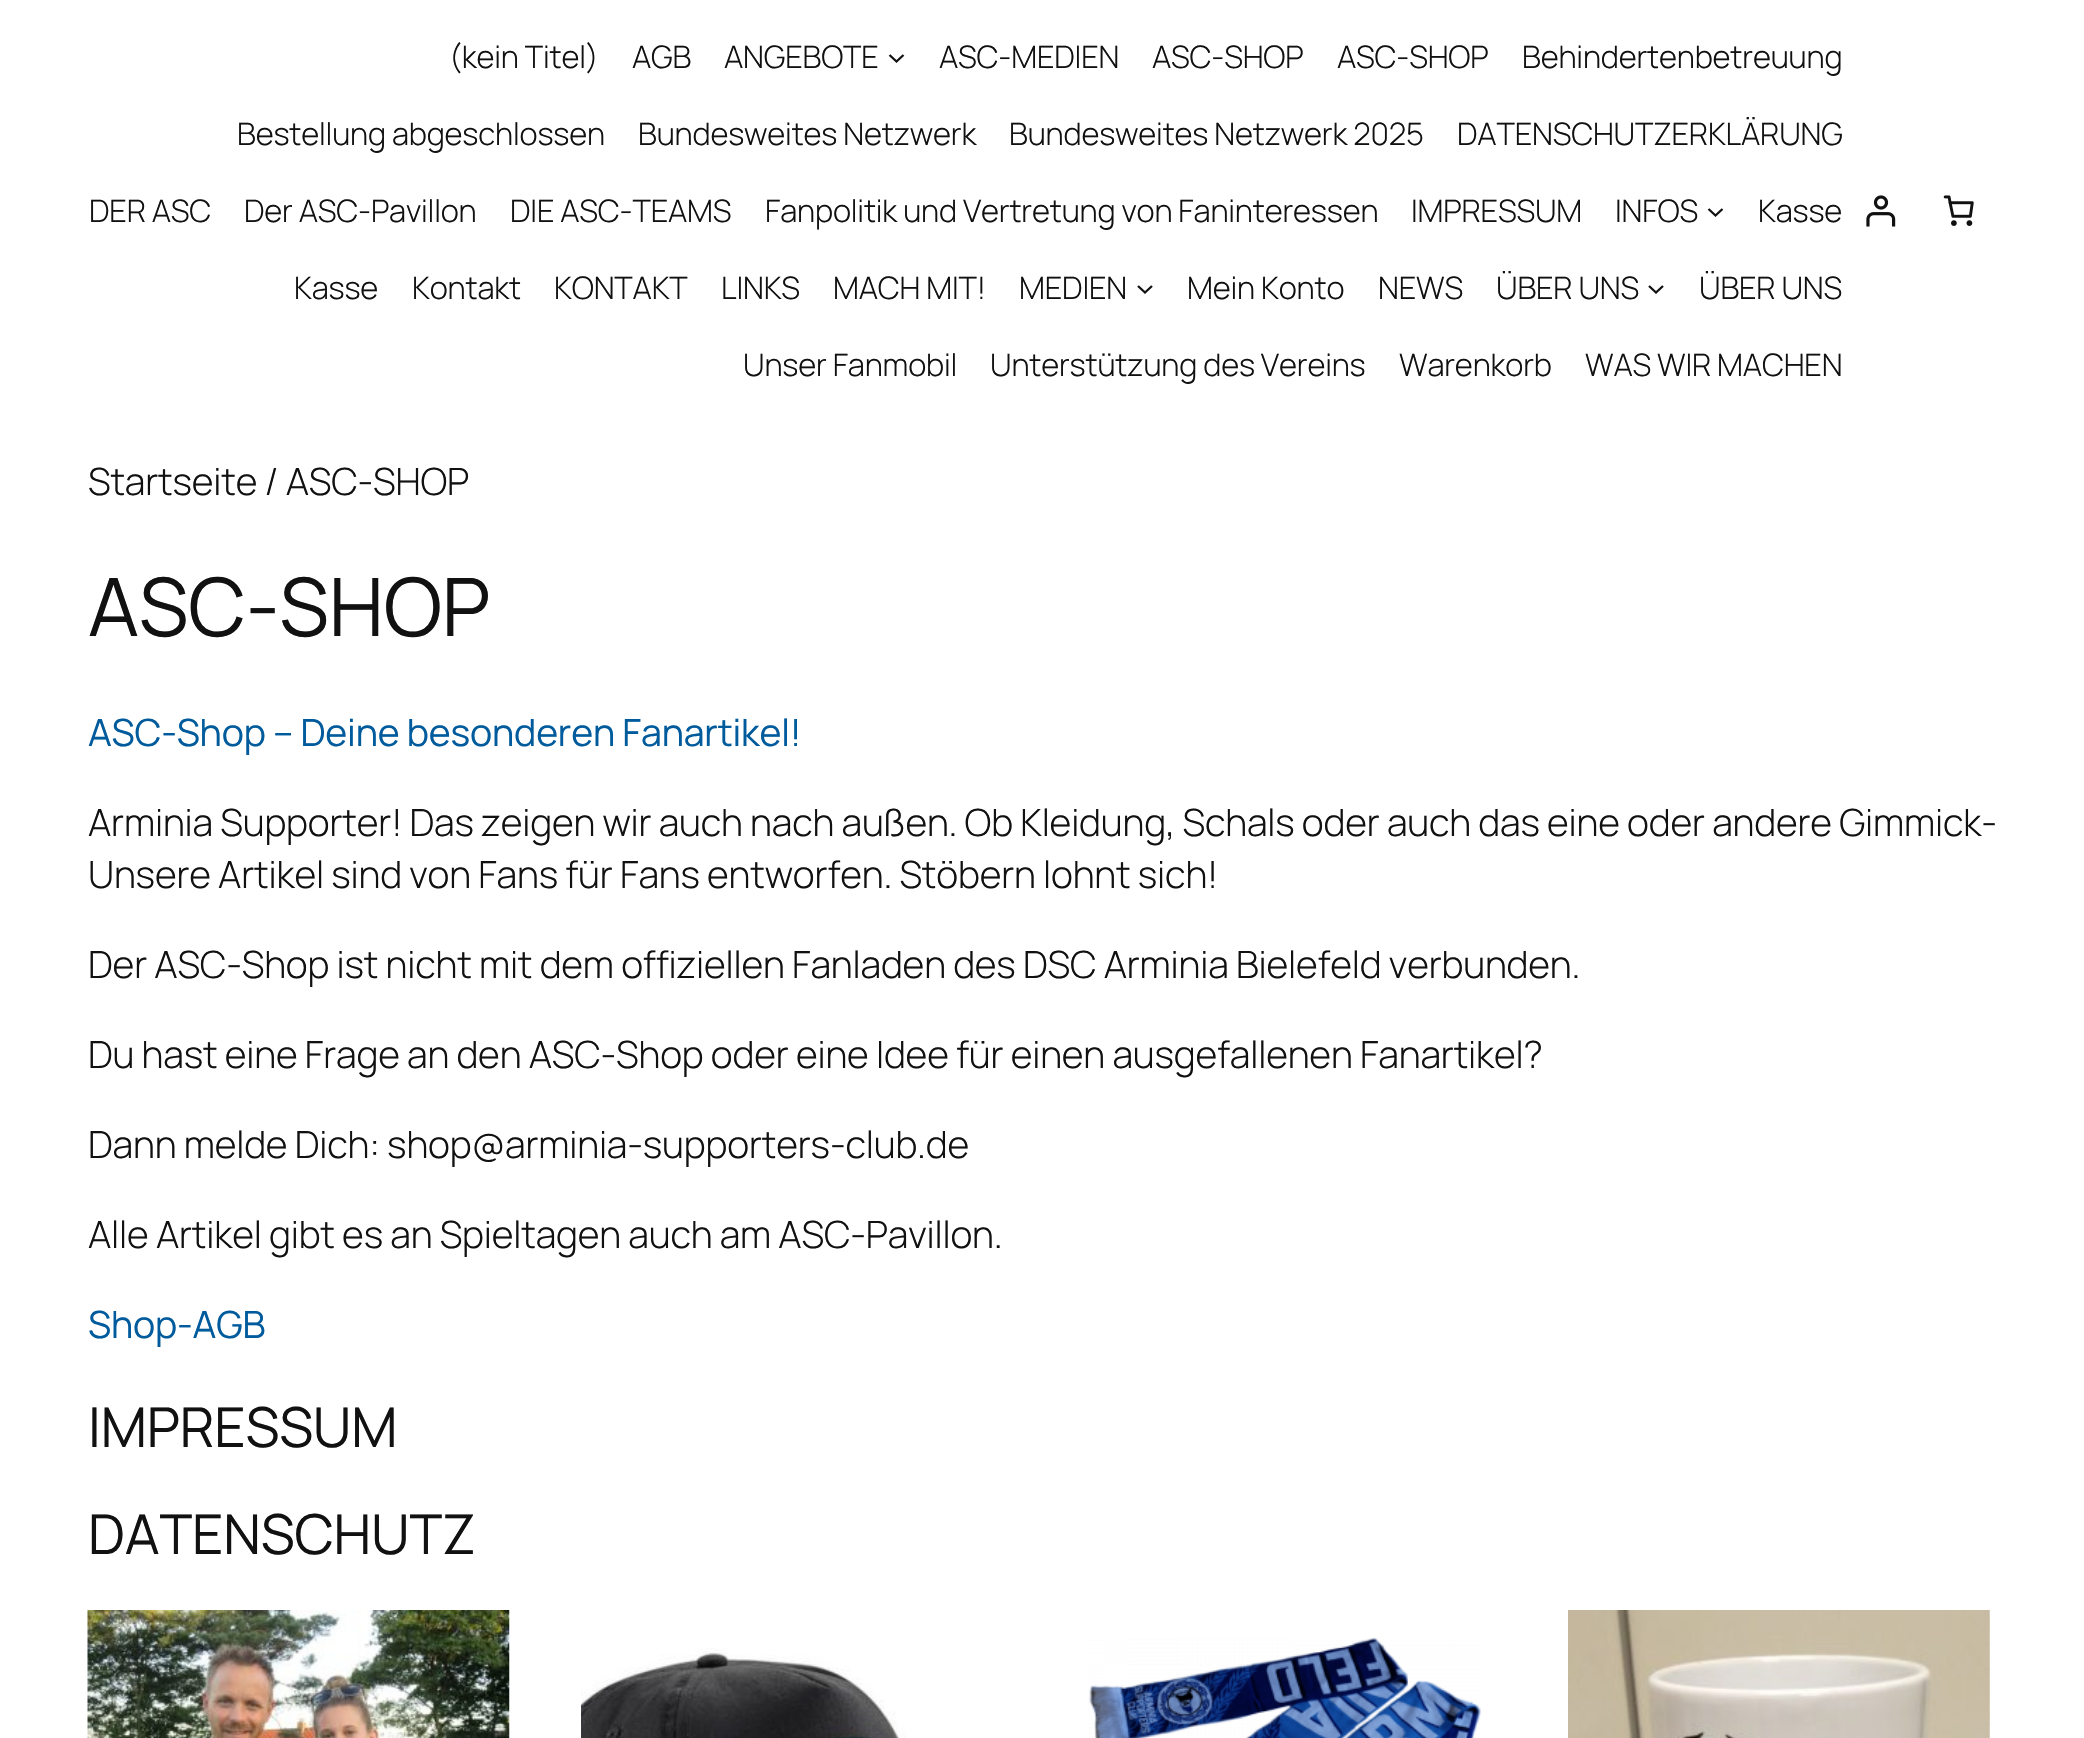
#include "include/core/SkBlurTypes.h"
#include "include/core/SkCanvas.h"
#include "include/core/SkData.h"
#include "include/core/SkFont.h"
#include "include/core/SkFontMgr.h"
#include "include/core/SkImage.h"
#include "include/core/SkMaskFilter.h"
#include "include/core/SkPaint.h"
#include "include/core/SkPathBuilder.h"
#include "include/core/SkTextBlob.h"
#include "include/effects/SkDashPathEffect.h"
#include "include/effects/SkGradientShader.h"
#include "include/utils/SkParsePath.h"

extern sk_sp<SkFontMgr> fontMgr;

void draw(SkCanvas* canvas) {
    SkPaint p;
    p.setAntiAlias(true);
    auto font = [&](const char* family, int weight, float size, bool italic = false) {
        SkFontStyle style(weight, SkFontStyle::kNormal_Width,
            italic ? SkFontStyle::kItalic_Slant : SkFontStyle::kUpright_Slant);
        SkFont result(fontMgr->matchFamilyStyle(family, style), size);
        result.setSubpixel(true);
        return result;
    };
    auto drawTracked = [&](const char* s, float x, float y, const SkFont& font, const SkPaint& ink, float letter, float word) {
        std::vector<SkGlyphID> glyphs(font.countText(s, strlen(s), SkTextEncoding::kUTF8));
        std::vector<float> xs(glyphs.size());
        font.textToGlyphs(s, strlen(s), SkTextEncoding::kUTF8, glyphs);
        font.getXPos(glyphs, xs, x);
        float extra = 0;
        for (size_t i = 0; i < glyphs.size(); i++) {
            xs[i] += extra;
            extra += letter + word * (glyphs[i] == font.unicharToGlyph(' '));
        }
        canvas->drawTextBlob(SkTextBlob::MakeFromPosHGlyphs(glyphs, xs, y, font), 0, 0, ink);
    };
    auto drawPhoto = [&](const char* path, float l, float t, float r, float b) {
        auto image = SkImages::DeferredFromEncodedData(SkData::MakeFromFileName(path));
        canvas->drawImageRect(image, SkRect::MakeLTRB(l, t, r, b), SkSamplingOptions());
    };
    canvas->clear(0xFFFFFFFF);
    auto font1 = font("Manrope", 300, 31);
    p.setColor(0xFF111111);
    {
        const struct { const char* s; float x, y; } items[] = {
            {"(kein Titel)", 449, 68},
            {"AGB", 632, 68},
            {"ANGEBOTE", 724, 68},
        };
        for (auto [s, x, y] : items) {
            drawTracked(s, x, y, font1, p, -0.18f, 0);
        }
    }
    p.setStyle(SkPaint::kStroke_Style);
    p.setStrokeWidth(2.3f);
    canvas->drawPath(SkPathBuilder().moveTo(889.5f, 55).lineTo(896.5f, 61.5f).lineTo(903.5f, 55).detach(), p);
    p.setStyle(SkPaint::kFill_Style);
    {
        const struct { const char* s; float x, y; } items[] = {
            {"ASC-MEDIEN", 939, 68},
            {"ASC-SHOP", 1152, 68},
            {"ASC-SHOP", 1337, 68},
            {"Behindertenbetreuung", 1522, 68},
            {"Bestellung abgeschlossen", 237, 145},
            {"Bundesweites Netzwerk", 638, 145},
            {"Bundesweites Netzwerk 2025", 1009, 145},
            {"DATENSCHUTZERKLÄRUNG", 1457, 145},
            {"DER ASC", 89, 222},
            {"Der ASC-Pavillon", 244, 222},
            {"DIE ASC-TEAMS", 510, 222},
            {"Fanpolitik und Vertretung von Faninteressen", 765, 222},
            {"IMPRESSUM", 1411, 222},
            {"INFOS", 1615, 222},
        };
        for (auto [s, x, y] : items) {
            drawTracked(s, x, y, font1, p, -0.18f, 0);
        }
    }
    p.setStyle(SkPaint::kStroke_Style);
    canvas->drawPath(SkPathBuilder().moveTo(1708.5f, 209).lineTo(1715.5f, 215.5f).lineTo(1722.5f, 209).detach(), p);
    p.setStyle(SkPaint::kFill_Style);
    {
        const struct { const char* s; float x, y; } items[] = {
            {"Kasse", 1758, 222},
            {"Kasse", 294, 299},
            {"Kontakt", 412, 299},
            {"KONTAKT", 554, 299},
            {"LINKS", 721, 299},
            {"MACH MIT!", 833, 299},
            {"MEDIEN", 1019, 299},
        };
        for (auto [s, x, y] : items) {
            drawTracked(s, x, y, font1, p, -0.18f, 0);
        }
    }
    p.setStyle(SkPaint::kStroke_Style);
    canvas->drawPath(SkPathBuilder().moveTo(1138, 286).lineTo(1145, 292.5f).lineTo(1152, 286).detach(), p);
    p.setStyle(SkPaint::kFill_Style);
    {
        const struct { const char* s; float x, y; } items[] = {
            {"Mein Konto", 1187, 299},
            {"NEWS", 1378, 299},
            {"ÜBER UNS", 1496, 299},
        };
        for (auto [s, x, y] : items) {
            drawTracked(s, x, y, font1, p, -0.18f, 0);
        }
    }
    p.setStyle(SkPaint::kStroke_Style);
    canvas->drawPath(SkPathBuilder().moveTo(1649, 286).lineTo(1656, 292.5f).lineTo(1663, 286).detach(), p);
    p.setStyle(SkPaint::kFill_Style);
    {
        const struct { const char* s; float x, y; } items[] = {
            {"ÜBER UNS", 1699, 299},
            {"Unser Fanmobil", 743, 376},
            {"Unterstützung des Vereins", 990, 376},
            {"Warenkorb", 1399, 376},
            {"WAS WIR MACHEN", 1585, 376},
        };
        for (auto [s, x, y] : items) {
            drawTracked(s, x, y, font1, p, -0.18f, 0);
        }
    }
    drawPhoto("media/1.png", 1866, 195, 1896, 227);
    drawPhoto("media/2.png", 1943, 195, 1974, 226);
    auto font2 = font("Manrope", 300, 37.48f);
    drawTracked("Startseite / ASC-SHOP", 88, 495, font2, p, -0.18f, 0);
    auto font3 = font("Manrope", 400, 80.5f);
    drawTracked("ASC-SHOP", 88, 636, font3, p, -0.18f, 0);
    auto font4 = font("Manrope", 400, 37.48f);
    p.setColor(0xFF005B9D);
    drawTracked("ASC-Shop – Deine besonderen Fanartikel!", 88, 746, font4, p, -0.18f, 0);
    p.setColor(0xFF111111);
    {
        const struct { const char* s; float x, y; } items[] = {
            {"Arminia Supporter! Das zeigen wir auch nach außen. Ob Kleidung, Schals oder auch das eine oder andere Gimmick-", 88, 836},
            {"Unsere Artikel sind von Fans für Fans entworfen. Stöbern lohnt sich!", 88, 888},
            {"Der ASC-Shop ist nicht mit dem offiziellen Fanladen des DSC Arminia Bielefeld verbunden.", 88, 978},
            {"Du hast eine Frage an den ASC-Shop oder eine Idee für einen ausgefallenen Fanartikel?", 88, 1068},
            {"Dann melde Dich: shop@arminia-supporters-club.de", 88, 1158},
            {"Alle Artikel gibt es an Spieltagen auch am ASC-Pavillon.", 88, 1248},
        };
        for (auto [s, x, y] : items) {
            drawTracked(s, x, y, font2, p, -0.18f, 0);
        }
    }
    p.setColor(0xFF005B9D);
    drawTracked("Shop-AGB", 88, 1338, font4, p, -0.18f, 0);
    auto font5 = font("Manrope", 400, 55);
    p.setColor(0xFF111111);
    drawTracked("IMPRESSUM", 88, 1447, font5, p, -0.18f, 0);
    drawTracked("DATENSCHUTZ", 88, 1554, font5, p, -0.18f, 0);
    drawPhoto("media/3.png", 87, 1610, 510, 1738);
    drawPhoto("media/4.png", 581, 1648, 906, 1738);
    drawPhoto("media/5.png", 1088, 1638, 1481, 1738);
    drawPhoto("media/6.png", 1568, 1610, 1990, 1738);
}
